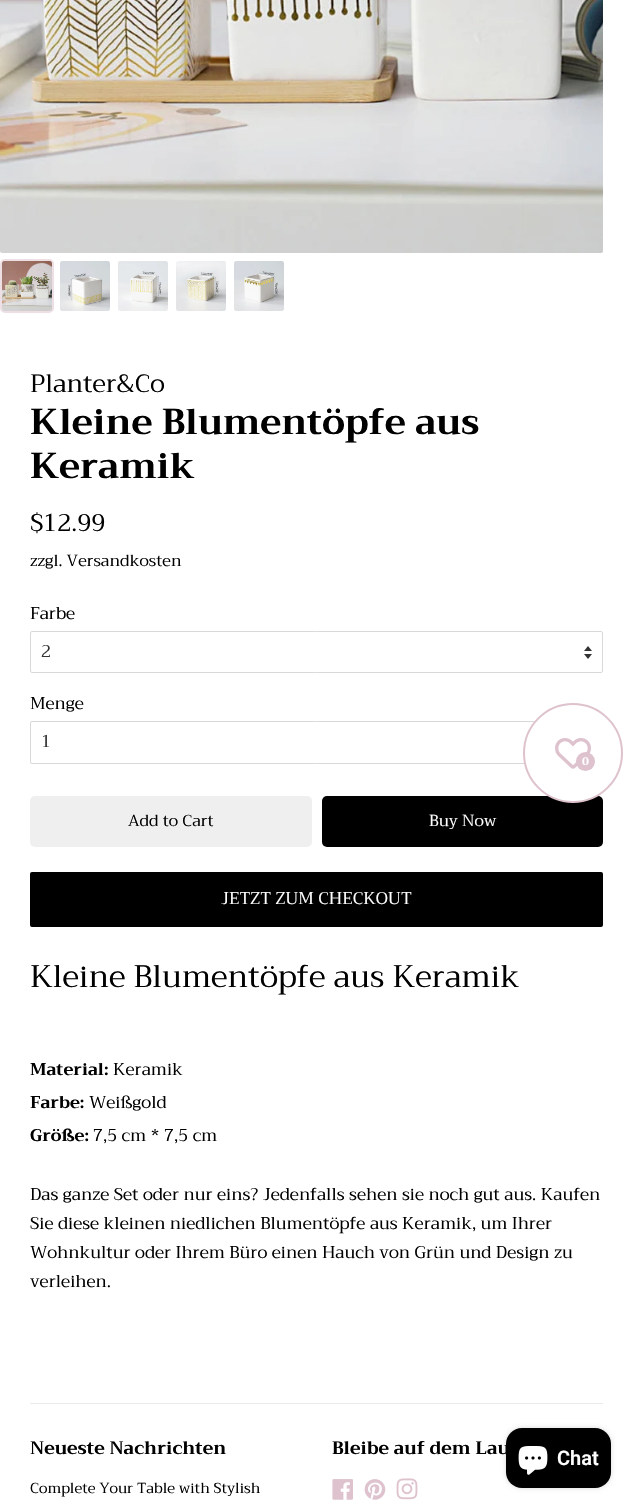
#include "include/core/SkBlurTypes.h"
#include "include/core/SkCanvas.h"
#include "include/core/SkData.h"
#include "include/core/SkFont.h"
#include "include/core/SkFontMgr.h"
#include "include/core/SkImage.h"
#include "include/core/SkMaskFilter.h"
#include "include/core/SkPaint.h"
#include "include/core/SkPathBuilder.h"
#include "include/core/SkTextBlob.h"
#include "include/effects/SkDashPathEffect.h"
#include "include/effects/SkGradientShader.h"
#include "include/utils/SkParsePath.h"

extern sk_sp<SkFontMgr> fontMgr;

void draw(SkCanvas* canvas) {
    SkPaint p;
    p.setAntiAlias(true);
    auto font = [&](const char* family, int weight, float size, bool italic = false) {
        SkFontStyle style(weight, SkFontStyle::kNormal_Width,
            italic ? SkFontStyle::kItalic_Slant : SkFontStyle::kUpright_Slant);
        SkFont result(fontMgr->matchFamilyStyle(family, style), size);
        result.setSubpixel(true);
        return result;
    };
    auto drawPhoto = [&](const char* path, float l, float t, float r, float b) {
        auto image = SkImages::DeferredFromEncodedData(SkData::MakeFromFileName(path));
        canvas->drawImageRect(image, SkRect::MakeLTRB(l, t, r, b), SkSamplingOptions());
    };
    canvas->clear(0xFFFFFFFF);
    drawPhoto("media/1.png", 0, 0, 603, 253);
    drawPhoto("media/2.png", 601, 251, 603, 253);
    p.setStyle(SkPaint::kStroke_Style);
    p.setStrokeWidth(2);
    p.setColor(0xFFEEDFE4);
    canvas->drawRoundRect(SkRect::MakeLTRB(1, 260, 53, 312), 4, 4, p);
    drawPhoto("media/3.png", 2, 261, 52, 311);
    drawPhoto("media/4.png", 2, 261, 52, 311);
    drawPhoto("media/5.png", 60, 261, 110, 311);
    drawPhoto("media/6.png", 60, 261, 110, 311);
    drawPhoto("media/7.png", 118, 261, 168, 311);
    drawPhoto("media/8.png", 118, 261, 168, 311);
    drawPhoto("media/9.png", 176, 261, 226, 311);
    drawPhoto("media/10.png", 176, 261, 226, 311);
    drawPhoto("media/11.png", 234, 261, 284, 311);
    drawPhoto("media/12.png", 234, 261, 284, 311);
    auto font1 = font("Trirong", 400, 25);
    p.setStyle(SkPaint::kFill_Style);
    p.setColor(0xFF000000);
    canvas->drawString("Planter&Co", 30, 392, font1, p);
    auto font2 = font("Trirong", 700, 36);
    canvas->drawString("Kleine Blumentöpfe aus", 30, 434, font2, p);
    canvas->drawString("Keramik", 30, 478, font2, p);
    auto font3 = font("Trirong", 400, 24);
    canvas->drawString("$12.99", 30, 531, font3, p);
    auto font4 = font("Trirong", 400, 16);
    canvas->drawString("zzgl. Versandkosten", 30, 566, font4, p);
    auto font5 = font("Trirong", 400, 17);
    canvas->drawString("Farbe", 30, 619, font5, p);
    drawPhoto("media/13.png", 584, 646, 592, 659);
    p.setStyle(SkPaint::kStroke_Style);
    p.setStrokeWidth(1);
    p.setColor(0xFFD9D9D9);
    canvas->drawRoundRect(SkRect::MakeLTRB(30.5f, 631.5f, 602.5f, 672.5f), 1.5f, 1.5f, p);
    p.setStyle(SkPaint::kFill_Style);
    p.setColor(0xFF333333);
    canvas->drawString("2", 41, 657, font5, p);
    p.setColor(0xFF000000);
    canvas->drawString("Menge", 30, 709, font5, p);
    p.setStyle(SkPaint::kStroke_Style);
    p.setColor(0xFFD9D9D9);
    canvas->drawRoundRect(SkRect::MakeLTRB(30.5f, 721.5f, 602.5f, 763.5f), 1.5f, 1.5f, p);
    p.setStyle(SkPaint::kFill_Style);
    p.setColor(0xFF333333);
    canvas->drawString("1", 41, 747, font5, p);
    p.setColor(0xFFEFEFEF);
    canvas->drawRoundRect(SkRect::MakeLTRB(30, 796, 312, 847), 5, 5, p);
    p.setColor(0xFF000000);
    canvas->drawString("Add to Cart", 128, 826, font4, p);
    canvas->drawRoundRect(SkRect::MakeLTRB(322, 796, 603, 847), 5, 5, p);
    p.setColor(0xFFFFFFFF);
    canvas->drawString("Buy Now", 429, 826, font4, p);
    p.setColor(0xFF000000);
    canvas->drawRoundRect(SkRect::MakeLTRB(30, 872, 603, 927), 2, 2, p);
    p.setColor(0xFFFFFFFF);
    canvas->drawString("JETZT ZUM CHECKOUT", 221, 904, font5, p);
    auto font6 = font("Trirong", 400, 31);
    p.setColor(0xFF000000);
    canvas->drawString("Kleine Blumentöpfe aus Keramik", 30, 987, font6, p);
    auto font7 = font("Trirong", 700, 17);
    canvas->drawString("Material:", 30, 1075, font7, p);
    canvas->drawString("Keramik", 113, 1075, font5, p);
    canvas->drawString("Farbe:", 30, 1108, font7, p);
    canvas->drawString("Weißgold", 89, 1108, font5, p);
    canvas->drawString("Größe:", 30, 1141, font7, p);
    {
        const struct { const char* s; float x, y; } items[] = {
            {"7,5 cm * 7,5 cm", 93, 1141},
            {"Das ganze Set oder nur eins? Jedenfalls sehen sie noch gut aus. Kaufen", 30, 1200},
            {"Sie diese kleinen niedlichen Blumentöpfe aus Keramik, um Ihrer", 30, 1229},
            {"Wohnkultur oder Ihrem Büro einen Hauch von Grün und Design zu", 30, 1258},
            {"verleihen.", 30, 1287},
        };
        for (auto [s, x, y] : items) {
            canvas->drawString(s, x, y, font5, p);
        }
    }
    p.setColor(0xFFEBEBEB);
    canvas->drawRect(SkRect::MakeLTRB(30, 1403, 603, 1404), p);
    p.setColor(0xFFFFFFFF);
    canvas->drawCircle(573, 753, 49, p);
    p.setStyle(SkPaint::kStroke_Style);
    p.setStrokeWidth(2);
    p.setColor(0xFFDEC2CD);
    canvas->drawCircle(573, 753, 49, p);
    drawPhoto("media/14.png", 555, 738, 591, 769);
    p.setStyle(SkPaint::kFill_Style);
    canvas->drawCircle(585.5f, 761.5f, 9.5f, p);
    auto font8 = font("Trirong", 700, 11);
    p.setColor(0xFFFFFFFF);
    canvas->drawString("0", 582, 765, font8, p);
    auto font9 = font("Trirong", 700, 18);
    p.setColor(0xFF000000);
    canvas->drawString("Neueste Nachrichten", 30, 1454, font9, p);
    auto font10 = font("Trirong", 400, 14.5f);
    canvas->drawString("Complete Your Table with Stylish", 30, 1493, font10, p);
    canvas->drawString("Bleibe auf dem Lau", 332, 1454, font9, p);
    drawPhoto("media/15.png", 332, 1479, 353, 1500);
    drawPhoto("media/16.png", 364, 1479, 386, 1500);
    drawPhoto("media/17.png", 396, 1478, 418, 1500);
    p.setColor(0x26000000);
    p.setMaskFilter(SkMaskFilter::MakeBlur(kNormal_SkBlurStyle, 2.5f));
    canvas->drawRoundRect(SkRect::MakeLTRB(506, 1428, 611, 1488), 16, 16, p);
    p.setMaskFilter(nullptr);
    p.setColor(0xFF000000);
    canvas->drawRoundRect(SkRect::MakeLTRB(506, 1428, 611, 1488), 16, 16, p);
    drawPhoto("media/18.png", 518, 1446, 548, 1475);
    auto font11 = font("Roboto", 600, 20);
    p.setColor(0xFFFFFFFF);
    canvas->drawString("Chat", 557, 1465, font11, p);
}
